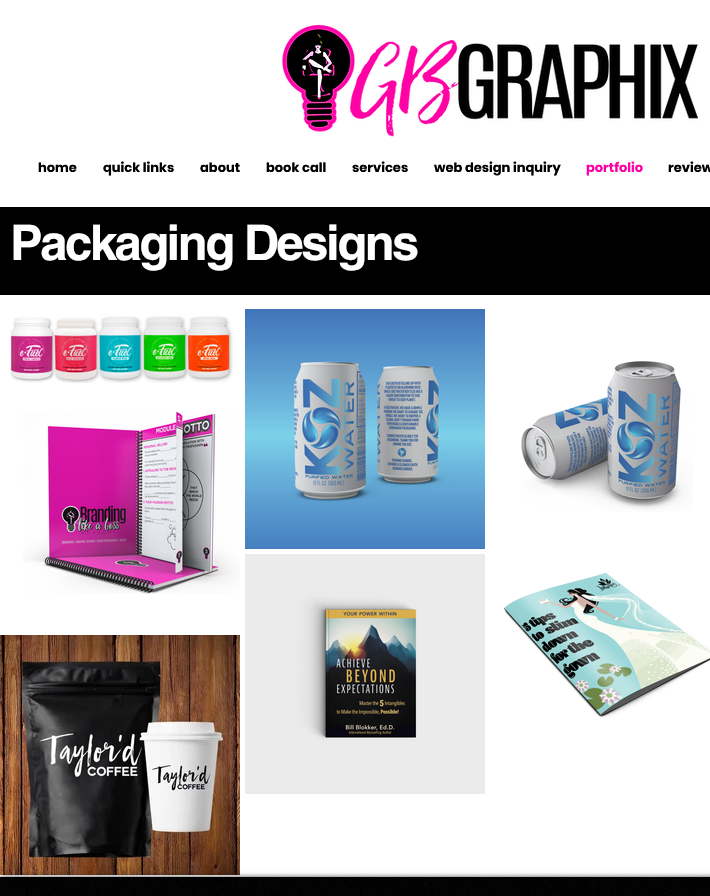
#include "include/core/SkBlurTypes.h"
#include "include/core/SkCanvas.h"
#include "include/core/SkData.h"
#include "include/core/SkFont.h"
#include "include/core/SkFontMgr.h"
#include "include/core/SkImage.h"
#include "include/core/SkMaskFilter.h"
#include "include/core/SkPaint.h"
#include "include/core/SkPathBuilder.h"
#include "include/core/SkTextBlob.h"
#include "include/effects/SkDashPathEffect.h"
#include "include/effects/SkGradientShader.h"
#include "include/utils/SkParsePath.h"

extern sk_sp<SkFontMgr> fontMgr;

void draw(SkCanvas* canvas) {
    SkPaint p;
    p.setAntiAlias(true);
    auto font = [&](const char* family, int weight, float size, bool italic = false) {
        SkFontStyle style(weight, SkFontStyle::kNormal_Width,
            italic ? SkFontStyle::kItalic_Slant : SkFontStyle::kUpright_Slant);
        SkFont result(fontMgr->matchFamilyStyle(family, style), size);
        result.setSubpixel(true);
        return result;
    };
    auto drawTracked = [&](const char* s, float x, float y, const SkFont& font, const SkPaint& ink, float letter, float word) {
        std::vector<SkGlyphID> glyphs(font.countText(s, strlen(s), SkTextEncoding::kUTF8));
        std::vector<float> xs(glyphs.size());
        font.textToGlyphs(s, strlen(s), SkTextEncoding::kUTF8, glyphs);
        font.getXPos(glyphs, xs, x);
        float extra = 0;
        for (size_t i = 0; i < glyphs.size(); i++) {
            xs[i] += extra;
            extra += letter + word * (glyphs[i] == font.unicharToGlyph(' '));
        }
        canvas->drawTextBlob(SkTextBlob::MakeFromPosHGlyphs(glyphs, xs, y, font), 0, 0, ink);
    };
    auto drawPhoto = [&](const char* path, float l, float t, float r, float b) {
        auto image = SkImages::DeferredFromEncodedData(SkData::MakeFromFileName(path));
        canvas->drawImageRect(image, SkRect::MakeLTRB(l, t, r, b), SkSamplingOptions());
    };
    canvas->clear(0xFFFFFFFF);
    drawPhoto("media/1.png", 282, 24, 698, 137);
    auto font1 = font("Poppins", 700, 13);
    p.setColor(0xFF000000);
    {
        const struct { const char* s; float x, y; } items[] = {
            {"home", 38, 172},
            {"quick links", 103, 172},
            {"about", 200, 172},
            {"book call", 266, 172},
            {"services", 352, 172},
            {"web design inquiry", 434, 172},
        };
        for (auto [s, x, y] : items) {
            canvas->drawString(s, x, y, font1, p);
        }
    }
    p.setColor(0xFFFF00A7);
    canvas->drawString("portfolio", 586, 172, font1, p);
    p.setColor(0xFF000000);
    canvas->drawString("review", 668, 172, font1, p);
    canvas->drawRect(SkRect::MakeLTRB(0, 207, 710, 295), p);
    auto font2 = font("helvetica", 700, 49);
    p.setColor(0xFFFFFFFF);
    drawTracked("Packaging Designs", 10, 260, font2, p, -2.5f, 0);
    drawPhoto("media/2.png", 10, 316, 233, 383);
    drawPhoto("media/3.png", 245, 309, 485, 549);
    drawPhoto("media/4.png", 23, 411, 240, 594);
    drawPhoto("media/5.png", 521, 361, 693, 512);
    drawPhoto("media/6.png", 0, 635, 240, 875);
    drawPhoto("media/7.png", 245, 554, 485, 794);
    drawPhoto("media/8.png", 504, 572, 710, 718);
    p.setColor(0xB3000000);
    p.setMaskFilter(SkMaskFilter::MakeBlur(kNormal_SkBlurStyle, 2.5f));
    canvas->drawRect(SkRect::MakeLTRB(0, 877, 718, 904), p);
    p.setMaskFilter(nullptr);
    p.setColor(0xFF000000);
    canvas->drawRect(SkRect::MakeLTRB(0, 877, 710, 896), p);
    drawPhoto("media/9.png", 0, 877, 710, 896);
}
